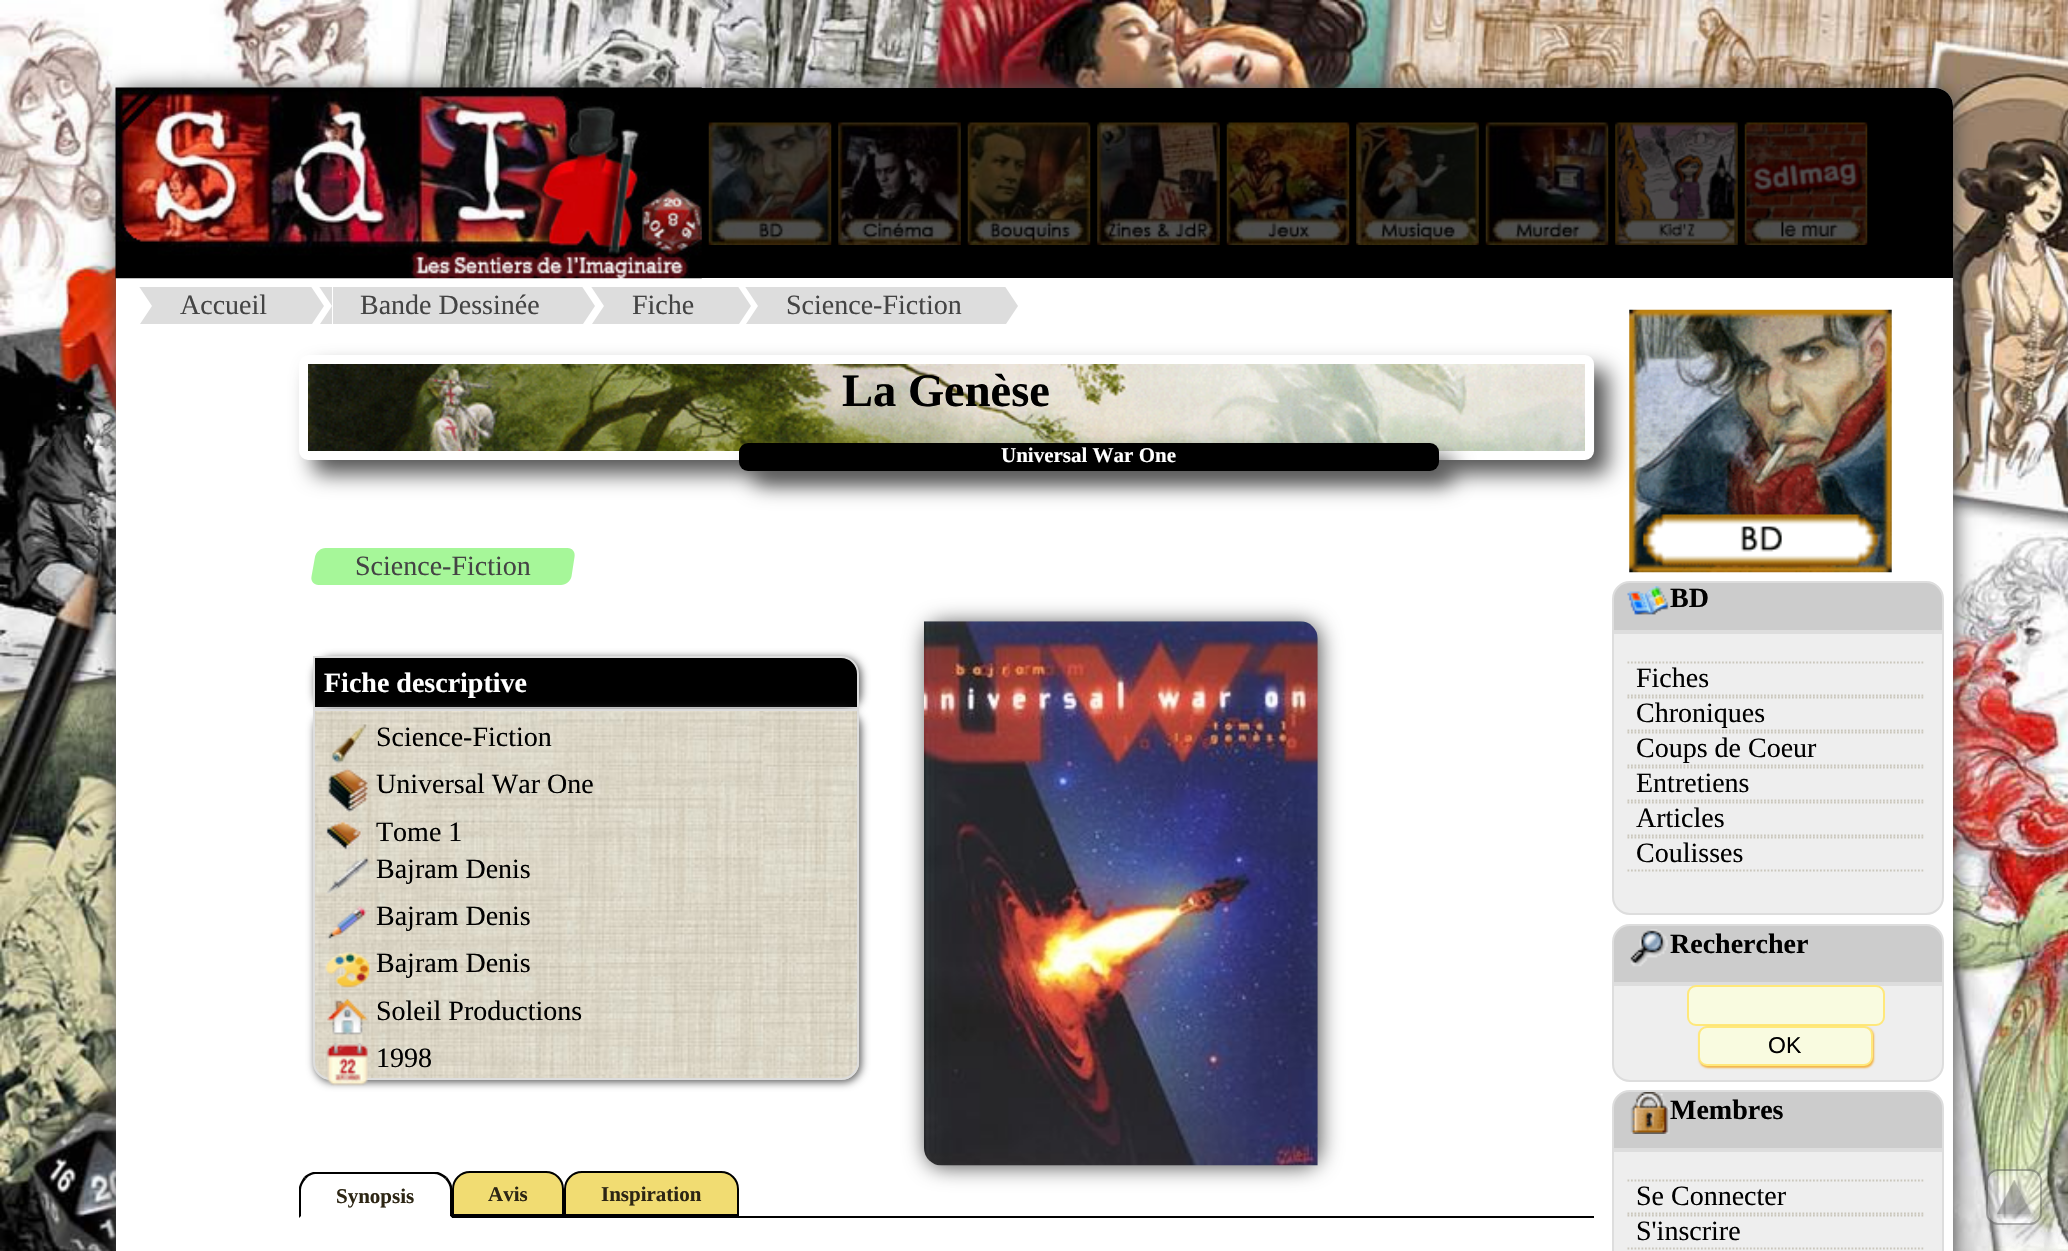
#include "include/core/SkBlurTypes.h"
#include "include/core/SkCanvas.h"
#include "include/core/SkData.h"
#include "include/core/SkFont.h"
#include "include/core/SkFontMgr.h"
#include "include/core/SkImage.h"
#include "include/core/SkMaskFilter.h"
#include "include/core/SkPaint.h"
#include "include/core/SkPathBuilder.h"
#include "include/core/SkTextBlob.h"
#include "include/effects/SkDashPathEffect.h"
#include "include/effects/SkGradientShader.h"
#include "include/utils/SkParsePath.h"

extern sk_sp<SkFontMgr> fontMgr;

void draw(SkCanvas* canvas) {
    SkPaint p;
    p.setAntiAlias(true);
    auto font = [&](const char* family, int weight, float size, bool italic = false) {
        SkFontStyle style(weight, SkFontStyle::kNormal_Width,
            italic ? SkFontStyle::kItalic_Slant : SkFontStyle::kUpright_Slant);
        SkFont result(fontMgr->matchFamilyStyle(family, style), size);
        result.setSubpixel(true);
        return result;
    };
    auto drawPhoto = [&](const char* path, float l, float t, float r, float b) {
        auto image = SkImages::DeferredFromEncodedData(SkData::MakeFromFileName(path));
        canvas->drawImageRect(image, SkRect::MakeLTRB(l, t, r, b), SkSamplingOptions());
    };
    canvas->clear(0xFFFFFFFF);
    drawPhoto("media/1.png", 0, 0, 2068, 1251);
    p.setColor(0xFF555555);
    p.setMaskFilter(SkMaskFilter::MakeBlur(kNormal_SkBlurStyle, 10.5f));
    canvas->drawRoundRect(SkRect::MakeLTRB(117, 89, 1955, 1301), 18, 18, p);
    p.setMaskFilter(nullptr);
    p.setColor(0xFFFFFFFF);
    canvas->drawPath(SkPathBuilder().moveTo(116, 88).lineTo(1935, 88).cubicTo(1945, 88, 1953, 96, 1953, 106).lineTo(1953, 1251).cubicTo(1953, 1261, 1945, 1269, 1935, 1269).lineTo(134, 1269).cubicTo(124, 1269, 116, 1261, 116, 1251).close().detach(), p);
    p.setColor(0xFF000000);
    canvas->drawPath(SkPathBuilder().moveTo(134, 88).lineTo(1935, 88).cubicTo(1945, 88, 1953, 96, 1953, 106).lineTo(1953, 278).lineTo(116, 278).lineTo(116, 106).cubicTo(116, 96, 124, 88, 134, 88).close().detach(), p);
    drawPhoto("media/2.png", 115, 87, 702, 279);
    drawPhoto("media/3.png", 708, 122, 832, 245);
    drawPhoto("media/4.png", 838, 122, 961, 245);
    drawPhoto("media/5.png", 967, 122, 1091, 245);
    drawPhoto("media/6.png", 1097, 122, 1220, 245);
    drawPhoto("media/7.png", 1226, 122, 1350, 245);
    drawPhoto("media/8.png", 1356, 122, 1479, 245);
    drawPhoto("media/9.png", 1485, 122, 1609, 245);
    drawPhoto("media/10.png", 1615, 122, 1738, 245);
    drawPhoto("media/11.png", 1744, 122, 1868, 245);
    p.setColor(0xFFDDDDDD);
    canvas->drawRect(SkRect::MakeLTRB(152, 287, 296, 324), p);
    canvas->save();
    canvas->clipRect(SkRect::MakeLTRB(124, 287, 1594, 324));
    canvas->drawPath(SkPathBuilder().moveTo(124, 264).lineTo(152, 264).lineTo(152, 306).close().moveTo(152, 348).lineTo(124, 348).lineTo(152, 306).close().detach(), p);
    canvas->restore();
    auto font1 = font("Liberation Serif", 400, 28);
    p.setColor(0xFF444444);
    canvas->drawString("Accueil", 180, 314, font1, p);
    canvas->save();
    canvas->clipRect(SkRect::MakeLTRB(124, 287, 1594, 324));
    p.setColor(0xFFDDDDDD);
    canvas->drawPath(SkPathBuilder().moveTo(296, 348).lineTo(296, 264).lineTo(324, 306).close().detach(), p);
    canvas->restore();
    canvas->drawRect(SkRect::MakeLTRB(333, 287, 567, 324), p);
    canvas->save();
    canvas->clipRect(SkRect::MakeLTRB(124, 287, 1594, 324));
    canvas->drawPath(SkPathBuilder().moveTo(304, 264).lineTo(332, 264).lineTo(332, 306).close().moveTo(332, 348).lineTo(304, 348).lineTo(332, 306).close().detach(), p);
    canvas->restore();
    p.setColor(0xFF444444);
    canvas->drawString("Bande Dessinée", 360, 314, font1, p);
    canvas->save();
    canvas->clipRect(SkRect::MakeLTRB(124, 287, 1594, 324));
    p.setColor(0xFFDDDDDD);
    canvas->drawPath(SkPathBuilder().moveTo(567, 348).lineTo(567, 264).lineTo(595, 306).close().detach(), p);
    canvas->restore();
    canvas->drawRect(SkRect::MakeLTRB(604, 287, 723, 324), p);
    canvas->save();
    canvas->clipRect(SkRect::MakeLTRB(124, 287, 1594, 324));
    canvas->drawPath(SkPathBuilder().moveTo(576, 264).lineTo(604, 264).lineTo(604, 306).close().moveTo(604, 348).lineTo(576, 348).lineTo(604, 306).close().detach(), p);
    canvas->restore();
    p.setColor(0xFF444444);
    canvas->drawString("Fiche", 632, 314, font1, p);
    canvas->save();
    canvas->clipRect(SkRect::MakeLTRB(124, 287, 1594, 324));
    p.setColor(0xFFDDDDDD);
    canvas->drawPath(SkPathBuilder().moveTo(723, 348).lineTo(723, 264).lineTo(751, 306).close().detach(), p);
    canvas->restore();
    canvas->drawRect(SkRect::MakeLTRB(758, 287, 990, 324), p);
    canvas->save();
    canvas->clipRect(SkRect::MakeLTRB(124, 287, 1594, 324));
    canvas->drawPath(SkPathBuilder().moveTo(730, 264).lineTo(758, 264).lineTo(758, 306).close().moveTo(758, 348).lineTo(730, 348).lineTo(758, 306).close().detach(), p);
    canvas->restore();
    p.setColor(0xFF444444);
    canvas->drawString("Science-Fiction", 786, 314, font1, p);
    canvas->save();
    canvas->clipRect(SkRect::MakeLTRB(124, 287, 1594, 324));
    p.setColor(0xFFDDDDDD);
    canvas->drawPath(SkPathBuilder().moveTo(990, 348).lineTo(990, 264).lineTo(1018, 306).close().detach(), p);
    canvas->restore();
    p.setColor(0xFF555555);
    p.setMaskFilter(SkMaskFilter::MakeBlur(kNormal_SkBlurStyle, 10.5f));
    canvas->drawRoundRect(SkRect::MakeLTRB(313, 369, 1608, 474), 9, 9, p);
    p.setMaskFilter(nullptr);
    drawPhoto("media/12.png", 308, 364, 1595, 452);
    p.setStyle(SkPaint::kStroke_Style);
    p.setStrokeWidth(9);
    p.setColor(0xFFFFFFFF);
    canvas->drawRoundRect(SkRect::MakeLTRB(303.5f, 359.5f, 1589.5f, 455.5f), 4.5f, 4.5f, p);
    auto font2 = font("Liberation Serif", 700, 46.5f);
    p.setStyle(SkPaint::kFill_Style);
    p.setColor(0xFF000000);
    canvas->drawString("La Genèse", 842, 406, font2, p);
    p.setColor(0xFF555555);
    p.setMaskFilter(SkMaskFilter::MakeBlur(kNormal_SkBlurStyle, 10.5f));
    canvas->drawRoundRect(SkRect::MakeLTRB(753, 457, 1453, 485), 9, 9, p);
    p.setMaskFilter(nullptr);
    p.setColor(0xFF000000);
    canvas->drawRoundRect(SkRect::MakeLTRB(739, 443, 1439, 471), 9, 9, p);
    auto font3 = font("Liberation Serif", 700, 21);
    p.setColor(0xFFFFFFFF);
    canvas->drawString("Universal War One", 1001, 462, font3, p);
    p.setColor(0xFFA6F799);
    canvas->drawRect(SkRect::MakeLTRB(338, 548, 549, 585), p);
    canvas->drawPath(SkPathBuilder().moveTo(325.5f, 548).lineTo(344.5f, 548).lineTo(338, 585).lineTo(318.5f, 585).cubicTo(314, 585, 310.5f, 581, 311.5f, 576.5f).lineTo(315, 557).cubicTo(316, 552, 320.5f, 548, 325.5f, 548).close().detach(), p);
    p.setColor(0xFF444444);
    canvas->drawString("Science-Fiction", 355, 575, font1, p);
    p.setColor(0xFFA6F799);
    canvas->drawPath(SkPathBuilder().moveTo(548.5f, 548).lineTo(567.5f, 548).cubicTo(572.5f, 548, 575.5f, 552, 574.5f, 557).lineTo(571.5f, 576.5f).cubicTo(570.5f, 581, 566, 585, 561, 585).lineTo(541.5f, 585).close().detach(), p);
    p.setColor(0xFF555555);
    p.setMaskFilter(SkMaskFilter::MakeBlur(kNormal_SkBlurStyle, 4.5f));
    canvas->drawRoundRect(SkRect::MakeLTRB(315, 658, 861, 711), 18, 18, p);
    p.setMaskFilter(nullptr);
    p.setColor(0xFF000000);
    canvas->drawPath(SkPathBuilder().moveTo(314, 657).lineTo(841, 657).cubicTo(850.5f, 657, 858, 664.5f, 858, 674).lineTo(858, 708).lineTo(314, 708).close().detach(), p);
    p.setStyle(SkPaint::kStroke_Style);
    p.setStrokeWidth(2);
    p.setColor(0xFFDDDDDD);
    canvas->drawPath(SkPathBuilder().moveTo(314, 657).lineTo(841, 657).cubicTo(850.5f, 657, 858, 664.5f, 858, 674).lineTo(858, 708).lineTo(314, 708).close().detach(), p);
    p.setStyle(SkPaint::kFill_Style);
    p.setColor(0xFF555555);
    p.setMaskFilter(SkMaskFilter::MakeBlur(kNormal_SkBlurStyle, 4.5f));
    canvas->drawRoundRect(SkRect::MakeLTRB(315, 711, 861, 1082), 18, 18, p);
    p.setMaskFilter(nullptr);
    auto font4 = font("Liberation Serif", 700, 28);
    p.setColor(0xFFFFFFFF);
    canvas->drawString("Fiche descriptive", 324, 692, font4, p);
    drawPhoto("media/13.png", 313, 709, 860, 1080);
    p.setStyle(SkPaint::kStroke_Style);
    p.setColor(0xFFDDDDDD);
    canvas->drawPath(SkPathBuilder().moveTo(314, 710).lineTo(858, 710).lineTo(858, 1062).cubicTo(858, 1071.5f, 850.5f, 1079, 841, 1079).lineTo(331, 1079).cubicTo(321.5f, 1079, 314, 1071.5f, 314, 1062).close().detach(), p);
    drawPhoto("media/14.png", 331, 724, 367, 764);
    p.setStyle(SkPaint::kFill_Style);
    p.setColor(0xFF000000);
    canvas->drawString("Science-Fiction", 376, 746, font1, p);
    drawPhoto("media/15.png", 328, 768, 369, 812);
    canvas->drawString("Universal War One", 376, 793, font1, p);
    drawPhoto("media/16.png", 325, 820, 362, 850);
    canvas->drawString("Tome 1", 376, 841, font1, p);
    drawPhoto("media/17.png", 326, 857, 370, 894);
    canvas->drawString("Bajram Denis", 376, 878, font1, p);
    drawPhoto("media/18.png", 327, 906, 367, 940);
    canvas->drawString("Bajram Denis", 376, 925, font1, p);
    drawPhoto("media/19.png", 325, 951, 370, 989);
    canvas->drawString("Bajram Denis", 376, 972, font1, p);
    drawPhoto("media/20.png", 327, 998, 368, 1035);
    canvas->drawString("Soleil Productions", 376, 1020, font1, p);
    drawPhoto("media/21.png", 326, 1043, 368, 1086);
    canvas->drawString("1998", 376, 1067, font1, p);
    p.setColor(0xFF555555);
    p.setMaskFilter(SkMaskFilter::MakeBlur(kNormal_SkBlurStyle, 10.5f));
    canvas->drawRoundRect(SkRect::MakeLTRB(926, 623, 1320, 1167), 18, 18, p);
    p.setMaskFilter(nullptr);
    drawPhoto("media/22.png", 924, 621, 1318, 1166);
    p.setColor(0xFF000000);
    canvas->drawRect(SkRect::MakeLTRB(452, 1216, 1594, 1218), p);
    p.setColor(0xFF2D2614);
    canvas->drawString("Synopsis", 336, 1203, font3, p);
    p.setColor(0xFF000000);
    canvas->drawPath(SkPathBuilder().moveTo(317, 1174).cubicTo(312, 1174, 308, 1176, 306, 1179).lineTo(304, 1177).cubicTo(306, 1175, 309, 1173, 313, 1172).lineTo(438, 1172).cubicTo(442, 1173, 444, 1175, 447, 1177).lineTo(445, 1179).cubicTo(442, 1176, 438, 1174, 434, 1174).close().detach(), p);
    canvas->drawPath(SkPathBuilder().moveTo(452, 1186).lineTo(452, 1218).lineTo(450, 1216).lineTo(450, 1190).cubicTo(450, 1186, 448, 1182, 445, 1179).lineTo(447, 1177).cubicTo(449, 1180, 451, 1182, 452, 1186).close().detach(), p);
    p.setColor(0xFFFFFFFF);
    canvas->drawPath(SkPathBuilder().moveTo(452, 1218).lineTo(450, 1216).lineTo(301, 1216).lineTo(299, 1218).close().detach(), p);
    p.setColor(0xFF000000);
    canvas->drawPath(SkPathBuilder().moveTo(299, 1218).lineTo(299, 1187).cubicTo(300, 1183, 302, 1180, 304, 1177).lineTo(306, 1179).cubicTo(303, 1182, 301, 1186, 301, 1190).lineTo(301, 1216).close().detach(), p);
    p.setColor(0xFFF1DC72);
    canvas->drawPath(SkPathBuilder().moveTo(470, 1172).lineTo(546, 1172).cubicTo(555.5f, 1172, 563, 1179.5f, 563, 1189).lineTo(563, 1215).lineTo(453, 1215).lineTo(453, 1189).cubicTo(453, 1179.5f, 460.5f, 1172, 470, 1172).close().detach(), p);
    p.setStyle(SkPaint::kStroke_Style);
    p.setColor(0xFF000000);
    canvas->drawPath(SkPathBuilder().moveTo(470, 1172).lineTo(546, 1172).cubicTo(555.5f, 1172, 563, 1179.5f, 563, 1189).lineTo(563, 1215).lineTo(453, 1215).lineTo(453, 1189).cubicTo(453, 1179.5f, 460.5f, 1172, 470, 1172).close().detach(), p);
    p.setStyle(SkPaint::kFill_Style);
    p.setColor(0xFF2D2614);
    canvas->drawString("Avis", 488, 1201, font3, p);
    p.setColor(0xFFF1DC72);
    canvas->drawPath(SkPathBuilder().moveTo(582, 1172).lineTo(721, 1172).cubicTo(730.5f, 1172, 738, 1179.5f, 738, 1189).lineTo(738, 1215).lineTo(565, 1215).lineTo(565, 1189).cubicTo(565, 1179.5f, 572.5f, 1172, 582, 1172).close().detach(), p);
    p.setStyle(SkPaint::kStroke_Style);
    p.setColor(0xFF000000);
    canvas->drawPath(SkPathBuilder().moveTo(582, 1172).lineTo(721, 1172).cubicTo(730.5f, 1172, 738, 1179.5f, 738, 1189).lineTo(738, 1215).lineTo(565, 1215).lineTo(565, 1189).cubicTo(565, 1179.5f, 572.5f, 1172, 582, 1172).close().detach(), p);
    p.setStyle(SkPaint::kFill_Style);
    p.setColor(0xFF2D2614);
    canvas->drawString("Inspiration", 601, 1201, font3, p);
    drawPhoto("media/23.png", 1629, 309, 1892, 573);
    p.setColor(0xFFCCCCCC);
    canvas->drawPath(SkPathBuilder().moveTo(1630, 582).lineTo(1926, 582).cubicTo(1935.5f, 582, 1943, 589.5f, 1943, 599).lineTo(1943, 631).lineTo(1613, 631).lineTo(1613, 599).cubicTo(1613, 589.5f, 1620.5f, 582, 1630, 582).close().detach(), p);
    p.setStyle(SkPaint::kStroke_Style);
    p.setColor(0xFFDDDDDD);
    canvas->drawPath(SkPathBuilder().moveTo(1630, 582).lineTo(1926, 582).cubicTo(1935.5f, 582, 1943, 589.5f, 1943, 599).lineTo(1943, 631).lineTo(1613, 631).lineTo(1613, 599).cubicTo(1613, 589.5f, 1620.5f, 582, 1630, 582).close().detach(), p);
    drawPhoto("media/24.png", 1627, 586, 1669, 615);
    p.setStyle(SkPaint::kFill_Style);
    p.setColor(0xFF000000);
    canvas->drawString("BD", 1670, 607, font4, p);
    p.setColor(0xFFEEEEEE);
    canvas->drawPath(SkPathBuilder().moveTo(1613, 633).lineTo(1943, 633).lineTo(1943, 897).cubicTo(1943, 906.5f, 1935.5f, 914, 1926, 914).lineTo(1630, 914).cubicTo(1620.5f, 914, 1613, 906.5f, 1613, 897).close().detach(), p);
    p.setStyle(SkPaint::kStroke_Style);
    p.setColor(0xFFDDDDDD);
    canvas->drawPath(SkPathBuilder().moveTo(1613, 633).lineTo(1943, 633).lineTo(1943, 897).cubicTo(1943, 906.5f, 1935.5f, 914, 1926, 914).lineTo(1630, 914).cubicTo(1620.5f, 914, 1613, 906.5f, 1613, 897).close().detach(), p);
    p.setStrokeWidth(1.8f);
    p.setColor(0xFFCAC7BC);
    p.setPathEffect(SkDashPathEffect::Make({{1.75f, 1.75f}}, 0));
    canvas->drawPath(SkPathBuilder().moveTo(1627.5f, 662.5f).lineTo(1925, 662.5f).detach(), p);
    p.setPathEffect(nullptr);
    p.setPathEffect(SkDashPathEffect::Make({{1.75f, 1.75f}}, 0));
    canvas->drawPath(SkPathBuilder().moveTo(1627.5f, 695.5f).lineTo(1925, 695.5f).detach(), p);
    p.setPathEffect(nullptr);
    p.setStyle(SkPaint::kFill_Style);
    p.setColor(0xFF000000);
    canvas->drawString("Fiches", 1636, 687, font1, p);
    p.setStyle(SkPaint::kStroke_Style);
    p.setColor(0xFFCAC7BC);
    p.setPathEffect(SkDashPathEffect::Make({{1.75f, 1.75f}}, 0));
    canvas->drawPath(SkPathBuilder().moveTo(1627.5f, 697.5f).lineTo(1925, 697.5f).detach(), p);
    p.setPathEffect(nullptr);
    p.setPathEffect(SkDashPathEffect::Make({{1.75f, 1.75f}}, 0));
    canvas->drawPath(SkPathBuilder().moveTo(1627.5f, 730.5f).lineTo(1925, 730.5f).detach(), p);
    p.setPathEffect(nullptr);
    p.setStyle(SkPaint::kFill_Style);
    p.setColor(0xFF000000);
    canvas->drawString("Chroniques", 1636, 722, font1, p);
    p.setStyle(SkPaint::kStroke_Style);
    p.setColor(0xFFCAC7BC);
    p.setPathEffect(SkDashPathEffect::Make({{1.75f, 1.75f}}, 0));
    canvas->drawPath(SkPathBuilder().moveTo(1627.5f, 732.5f).lineTo(1925, 732.5f).detach(), p);
    p.setPathEffect(nullptr);
    p.setPathEffect(SkDashPathEffect::Make({{1.75f, 1.75f}}, 0));
    canvas->drawPath(SkPathBuilder().moveTo(1627.5f, 765.5f).lineTo(1925, 765.5f).detach(), p);
    p.setPathEffect(nullptr);
    p.setStyle(SkPaint::kFill_Style);
    p.setColor(0xFF000000);
    canvas->drawString("Coups de Coeur", 1636, 757, font1, p);
    p.setStyle(SkPaint::kStroke_Style);
    p.setColor(0xFFCAC7BC);
    p.setPathEffect(SkDashPathEffect::Make({{1.75f, 1.75f}}, 0));
    canvas->drawPath(SkPathBuilder().moveTo(1627.5f, 767.5f).lineTo(1925, 767.5f).detach(), p);
    p.setPathEffect(nullptr);
    p.setPathEffect(SkDashPathEffect::Make({{1.75f, 1.75f}}, 0));
    canvas->drawPath(SkPathBuilder().moveTo(1627.5f, 800.5f).lineTo(1925, 800.5f).detach(), p);
    p.setPathEffect(nullptr);
    p.setStyle(SkPaint::kFill_Style);
    p.setColor(0xFF000000);
    canvas->drawString("Entretiens", 1636, 792, font1, p);
    p.setStyle(SkPaint::kStroke_Style);
    p.setColor(0xFFCAC7BC);
    p.setPathEffect(SkDashPathEffect::Make({{1.75f, 1.75f}}, 0));
    canvas->drawPath(SkPathBuilder().moveTo(1627.5f, 802.5f).lineTo(1925, 802.5f).detach(), p);
    p.setPathEffect(nullptr);
    p.setPathEffect(SkDashPathEffect::Make({{1.75f, 1.75f}}, 0));
    canvas->drawPath(SkPathBuilder().moveTo(1627.5f, 835.5f).lineTo(1925, 835.5f).detach(), p);
    p.setPathEffect(nullptr);
    p.setStyle(SkPaint::kFill_Style);
    p.setColor(0xFF000000);
    canvas->drawString("Articles", 1636, 827, font1, p);
    p.setStyle(SkPaint::kStroke_Style);
    p.setColor(0xFFCAC7BC);
    p.setPathEffect(SkDashPathEffect::Make({{1.75f, 1.75f}}, 0));
    canvas->drawPath(SkPathBuilder().moveTo(1627.5f, 837.5f).lineTo(1925, 837.5f).detach(), p);
    p.setPathEffect(nullptr);
    p.setPathEffect(SkDashPathEffect::Make({{1.75f, 1.75f}}, 0));
    canvas->drawPath(SkPathBuilder().moveTo(1627.5f, 870.5f).lineTo(1925, 870.5f).detach(), p);
    p.setPathEffect(nullptr);
    p.setStyle(SkPaint::kFill_Style);
    p.setColor(0xFF000000);
    canvas->drawString("Coulisses", 1636, 862, font1, p);
    p.setColor(0xFFCCCCCC);
    canvas->drawPath(SkPathBuilder().moveTo(1630, 925).lineTo(1926, 925).cubicTo(1935.5f, 925, 1943, 932.5f, 1943, 942).lineTo(1943, 983).lineTo(1613, 983).lineTo(1613, 942).cubicTo(1613, 932.5f, 1620.5f, 925, 1630, 925).close().detach(), p);
    p.setStyle(SkPaint::kStroke_Style);
    p.setStrokeWidth(2);
    p.setColor(0xFFDDDDDD);
    canvas->drawPath(SkPathBuilder().moveTo(1630, 925).lineTo(1926, 925).cubicTo(1935.5f, 925, 1943, 932.5f, 1943, 942).lineTo(1943, 983).lineTo(1613, 983).lineTo(1613, 942).cubicTo(1613, 932.5f, 1620.5f, 925, 1630, 925).close().detach(), p);
    drawPhoto("media/25.png", 1630, 929, 1668, 967);
    p.setStyle(SkPaint::kFill_Style);
    p.setColor(0xFF000000);
    canvas->drawString("Rechercher", 1670, 953, font4, p);
    p.setColor(0xFFEEEEEE);
    canvas->drawPath(SkPathBuilder().moveTo(1613, 985).lineTo(1943, 985).lineTo(1943, 1064).cubicTo(1943, 1073.5f, 1935.5f, 1081, 1926, 1081).lineTo(1630, 1081).cubicTo(1620.5f, 1081, 1613, 1073.5f, 1613, 1064).close().detach(), p);
    p.setStyle(SkPaint::kStroke_Style);
    p.setColor(0xFFDDDDDD);
    canvas->drawPath(SkPathBuilder().moveTo(1613, 985).lineTo(1943, 985).lineTo(1943, 1064).cubicTo(1943, 1073.5f, 1935.5f, 1081, 1926, 1081).lineTo(1630, 1081).cubicTo(1620.5f, 1081, 1613, 1073.5f, 1613, 1064).close().detach(), p);
    p.setStyle(SkPaint::kFill_Style);
    p.setColor(0xFFF9FBE0);
    canvas->drawRoundRect(SkRect::MakeLTRB(1688, 986, 1884, 1025), 8, 8, p);
    p.setStyle(SkPaint::kStroke_Style);
    p.setColor(0xFFFFE87A);
    canvas->drawRoundRect(SkRect::MakeLTRB(1688, 986, 1884, 1025), 8, 8, p);
    p.setStyle(SkPaint::kFill_Style);
    p.setColor(0xFFF4B548);
    p.setMaskFilter(SkMaskFilter::MakeBlur(kNormal_SkBlurStyle, 1));
    canvas->drawRoundRect(SkRect::MakeLTRB(1699, 1027, 1874, 1068), 9, 9, p);
    p.setMaskFilter(nullptr);
    p.setColor(0xFFF9FBE0);
    canvas->drawRoundRect(SkRect::MakeLTRB(1699, 1027, 1872, 1065), 8, 8, p);
    p.setStyle(SkPaint::kStroke_Style);
    p.setColor(0xFFFFE87A);
    canvas->drawRoundRect(SkRect::MakeLTRB(1699, 1027, 1872, 1065), 8, 8, p);
    auto font5 = font("Liberation Sans", 400, 23);
    p.setStyle(SkPaint::kFill_Style);
    p.setColor(0xFF000000);
    canvas->drawString("OK", 1768, 1053, font5, p);
    p.setColor(0xFFCCCCCC);
    canvas->drawPath(SkPathBuilder().moveTo(1630, 1091).lineTo(1926, 1091).cubicTo(1935.5f, 1091, 1943, 1098.5f, 1943, 1108).lineTo(1943, 1149).lineTo(1613, 1149).lineTo(1613, 1108).cubicTo(1613, 1098.5f, 1620.5f, 1091, 1630, 1091).close().detach(), p);
    p.setStyle(SkPaint::kStroke_Style);
    p.setColor(0xFFDDDDDD);
    canvas->drawPath(SkPathBuilder().moveTo(1630, 1091).lineTo(1926, 1091).cubicTo(1935.5f, 1091, 1943, 1098.5f, 1943, 1108).lineTo(1943, 1149).lineTo(1613, 1149).lineTo(1613, 1108).cubicTo(1613, 1098.5f, 1620.5f, 1091, 1630, 1091).close().detach(), p);
    drawPhoto("media/26.png", 1630, 1092, 1670, 1134);
    p.setStyle(SkPaint::kFill_Style);
    p.setColor(0xFF000000);
    canvas->drawString("Membres", 1670, 1119, font4, p);
    p.setColor(0xFFEEEEEE);
    canvas->drawRect(SkRect::MakeLTRB(1613, 1151, 1943, 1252), p);
    p.setStyle(SkPaint::kStroke_Style);
    p.setColor(0xFFDDDDDD);
    canvas->drawRect(SkRect::MakeLTRB(1613, 1151, 1943, 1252), p);
    p.setStrokeWidth(1.8f);
    p.setColor(0xFFCAC7BC);
    p.setPathEffect(SkDashPathEffect::Make({{1.75f, 1.75f}}, 0));
    canvas->drawPath(SkPathBuilder().moveTo(1627.5f, 1180.5f).lineTo(1925, 1180.5f).detach(), p);
    p.setPathEffect(nullptr);
    p.setPathEffect(SkDashPathEffect::Make({{1.75f, 1.75f}}, 0));
    canvas->drawPath(SkPathBuilder().moveTo(1627.5f, 1213.5f).lineTo(1925, 1213.5f).detach(), p);
    p.setPathEffect(nullptr);
    p.setStyle(SkPaint::kFill_Style);
    p.setColor(0xFF000000);
    canvas->drawString("Se Connecter", 1636, 1205, font1, p);
    p.setStyle(SkPaint::kStroke_Style);
    p.setColor(0xFFCAC7BC);
    p.setPathEffect(SkDashPathEffect::Make({{1.75f, 1.75f}}, 0));
    canvas->drawPath(SkPathBuilder().moveTo(1627.5f, 1215.5f).lineTo(1925, 1215.5f).detach(), p);
    p.setPathEffect(nullptr);
    p.setPathEffect(SkDashPathEffect::Make({{1.75f, 1.75f}}, 0));
    canvas->drawPath(SkPathBuilder().moveTo(1627.5f, 1248.5f).lineTo(1925, 1248.5f).detach(), p);
    p.setPathEffect(nullptr);
    p.setStyle(SkPaint::kFill_Style);
    p.setColor(0xFF000000);
    canvas->drawString("S'inscrire", 1636, 1240, font1, p);
    canvas->save();
    canvas->clipPath(SkPathBuilder(SkPathFillType::kEvenOdd).moveTo(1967, 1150).lineTo(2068, 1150).lineTo(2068, 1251).lineTo(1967, 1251).close().moveTo(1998, 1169).lineTo(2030, 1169).cubicTo(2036.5f, 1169, 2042, 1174.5f, 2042, 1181).lineTo(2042, 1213).cubicTo(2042, 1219.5f, 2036.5f, 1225, 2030, 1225).lineTo(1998, 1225).cubicTo(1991.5f, 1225, 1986, 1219.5f, 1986, 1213).lineTo(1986, 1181).cubicTo(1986, 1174.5f, 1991.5f, 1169, 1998, 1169).close().detach(), true);
    p.setColor(0x4DAAAAAA);
    p.setMaskFilter(SkMaskFilter::MakeBlur(kNormal_SkBlurStyle, 10.5f));
    canvas->drawRoundRect(SkRect::MakeLTRB(2000, 1183, 2056, 1239), 12, 12, p);
    p.setMaskFilter(nullptr);
    canvas->restore();
    p.setColor(0x4DFFFFFF);
    canvas->drawRoundRect(SkRect::MakeLTRB(1986, 1169, 2042, 1225), 12, 12, p);
    p.setStyle(SkPaint::kStroke_Style);
    p.setStrokeWidth(2);
    p.setColor(0x4D000000);
    canvas->drawRoundRect(SkRect::MakeLTRB(1987, 1170, 2041, 1224), 11, 11, p);
    drawPhoto("media/27.png", 1997, 1180, 2035, 1219);
}
